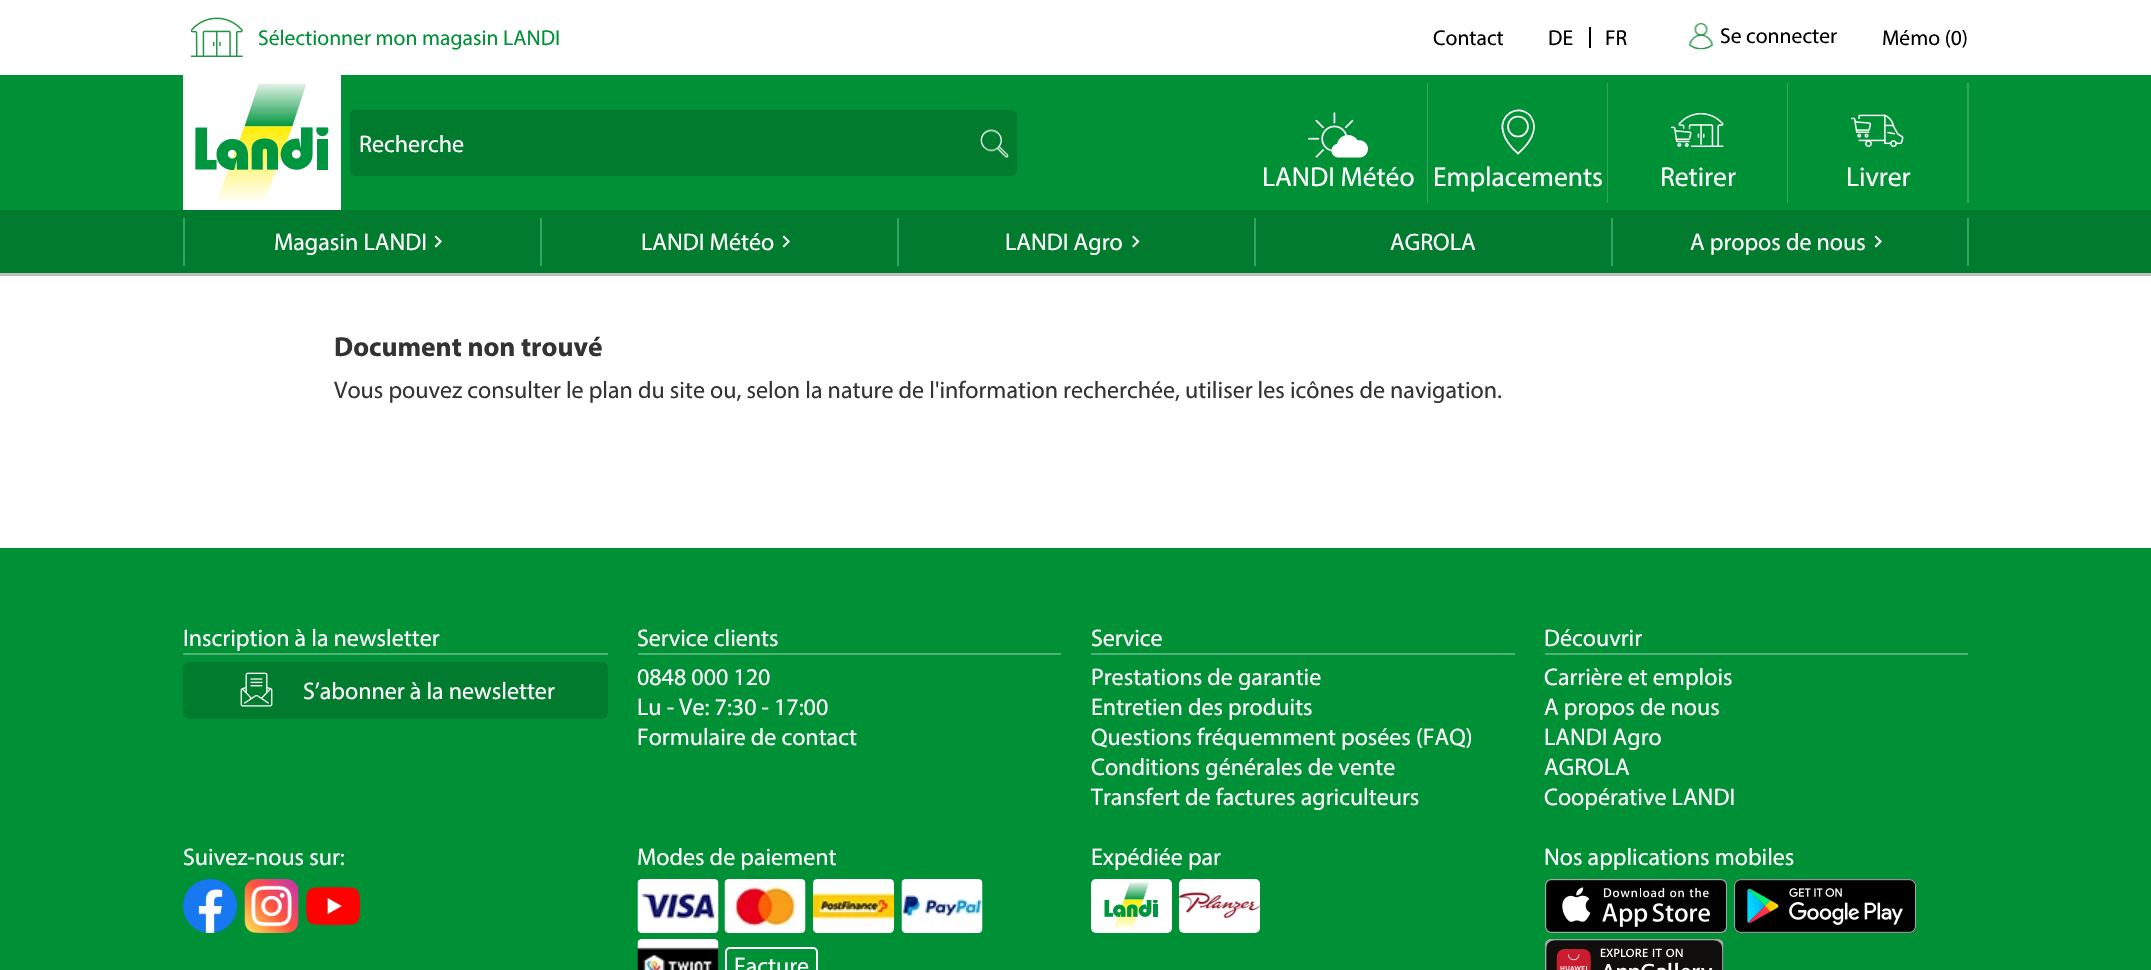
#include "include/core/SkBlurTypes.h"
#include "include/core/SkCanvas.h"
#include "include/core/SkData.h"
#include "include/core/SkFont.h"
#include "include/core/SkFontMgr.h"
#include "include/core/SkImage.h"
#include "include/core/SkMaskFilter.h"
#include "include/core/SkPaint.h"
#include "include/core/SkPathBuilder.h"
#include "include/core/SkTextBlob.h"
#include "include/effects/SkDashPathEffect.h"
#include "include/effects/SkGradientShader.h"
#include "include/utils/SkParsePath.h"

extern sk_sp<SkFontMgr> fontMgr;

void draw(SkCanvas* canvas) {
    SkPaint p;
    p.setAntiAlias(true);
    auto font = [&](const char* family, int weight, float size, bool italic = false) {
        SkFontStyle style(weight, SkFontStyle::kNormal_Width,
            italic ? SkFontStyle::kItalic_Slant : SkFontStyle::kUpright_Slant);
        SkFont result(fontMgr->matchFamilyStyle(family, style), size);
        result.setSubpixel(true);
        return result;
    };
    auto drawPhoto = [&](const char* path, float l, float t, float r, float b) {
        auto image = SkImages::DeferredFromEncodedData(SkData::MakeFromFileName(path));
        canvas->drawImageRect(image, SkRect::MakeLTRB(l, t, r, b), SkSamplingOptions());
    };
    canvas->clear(0xFFFFFFFF);
    drawPhoto("media/1.png", 191, 17, 243, 57);
    auto font1 = font("Myriad", 400, 21.6f);
    p.setColor(0xFF009036);
    canvas->drawString("Sélectionner mon magasin LANDI", 258, 45, font1, p);
    p.setColor(0xFF000000);
    canvas->drawString("Contact", 1433, 45, font1, p);
    canvas->drawString("DE", 1548, 45, font1, p);
    canvas->drawRect(SkRect::MakeLTRB(1589, 27, 1591, 48), p);
    canvas->drawString("FR", 1605, 45, font1, p);
    drawPhoto("media/2.png", 1688, 23, 1714, 50);
    canvas->drawString("Se connecter", 1720, 43, font1, p);
    canvas->drawString("Mémo (0)", 1882, 45, font1, p);
    p.setColor(0xFF009036);
    canvas->drawRect(SkRect::MakeLTRB(0, 75, 2151, 210), p);
    p.setColor(0xFFFFFFFF);
    canvas->drawRect(SkRect::MakeLTRB(183, 75, 341, 210), p);
    drawPhoto("media/3.png", 195, 83, 329, 201);
    p.setColor(0xFF017B2E);
    canvas->drawRoundRect(SkRect::MakeLTRB(350, 110, 1017, 176), 6, 6, p);
    canvas->drawPath(SkPathBuilder().moveTo(356, 110).lineTo(968, 110).lineTo(968, 176).lineTo(356, 176).cubicTo(352.5f, 176, 350, 173.5f, 350, 170).lineTo(350, 116).cubicTo(350, 112.5f, 352.5f, 110, 356, 110).close().detach(), p);
    p.setColor(0xFF01722B);
    canvas->drawPath(SkPathBuilder().moveTo(356, 111).lineTo(968, 111).lineTo(968, 110).lineTo(356, 110).cubicTo(352, 110, 350, 113, 350, 117).cubicTo(350, 114, 352, 111, 356, 111).close().detach(), p);
    auto font2 = font("Myriad", 400, 24);
    p.setColor(0xFFFFFFFF);
    canvas->drawString("Recherche", 359, 152, font2, p);
    drawPhoto("media/4.png", 980, 129, 1009, 158);
    p.setColor(0xFF33A65E);
    canvas->drawRect(SkRect::MakeLTRB(1427, 83, 1428, 203), p);
    drawPhoto("media/5.png", 1308, 112, 1368, 158);
    auto font3 = font("Myriad", 400, 27.5f);
    p.setColor(0xFFFFFFFF);
    canvas->drawString("LANDI Météo", 1262, 186, font3, p);
    p.setColor(0xFF33A65E);
    canvas->drawRect(SkRect::MakeLTRB(1607, 83, 1608, 203), p);
    p.setStyle(SkPaint::kStroke_Style);
    p.setStrokeWidth(1.7f);
    p.setStrokeCap(SkPaint::kRound_Cap);
    p.setStrokeJoin(SkPaint::kRound_Join);
    p.setColor(0xFFFFFFFF);
    canvas->drawPath(SkPathBuilder().moveTo(1534, 126.5f).cubicTo(1534, 122, 1532, 118, 1529.5f, 115).cubicTo(1517, 103, 1498.5f, 116, 1503, 131.5f).cubicTo(1505, 140, 1511.5f, 148, 1518, 153.5f).cubicTo(1525.5f, 147, 1534, 137, 1534, 126.5f).close().detach(), p);
    p.setStrokeCap(SkPaint::kButt_Cap);
    p.setStrokeJoin(SkPaint::kMiter_Join);
    canvas->drawCircle(1518, 126.5f, 10, p);
    p.setStyle(SkPaint::kFill_Style);
    canvas->drawString("Emplacements", 1433, 186, font3, p);
    drawPhoto("media/6.png", 1671, 112, 1724, 147);
    p.setColor(0xFF33A65E);
    canvas->drawRect(SkRect::MakeLTRB(1787, 83, 1788, 203), p);
    p.setColor(0xFFFFFFFF);
    canvas->drawString("Retirer", 1660, 186, font3, p);
    drawPhoto("media/7.png", 1851, 114, 1904, 147);
    p.setColor(0xFF33A65E);
    canvas->drawRect(SkRect::MakeLTRB(1967, 83, 1969, 203), p);
    p.setColor(0xFFFFFFFF);
    canvas->drawString("Livrer", 1846, 186, font3, p);
    {
        const struct { float l, t, r, b; SkColor color; } items[] = {
            {0, 210, 2151, 273, 0xFF017B2E},
            {0, 273, 2151, 276, 0xFFBEBEBE},
            {183, 218, 185, 266, 0xFF33A65E},
        };
        for (auto [l, t, r, b, color] : items) {
            p.setColor(color);
            canvas->drawRect(SkRect::MakeLTRB(l, t, r, b), p);
        }
    }
    p.setColor(0xFFFFFFFF);
    canvas->drawString("Magasin LANDI", 274, 250, font2, p);
    drawPhoto("media/8.png", 434, 235, 442, 248);
    p.setColor(0xFF33A65E);
    canvas->drawRect(SkRect::MakeLTRB(540, 218, 542, 266), p);
    p.setColor(0xFFFFFFFF);
    canvas->drawString("LANDI Météo", 641, 250, font2, p);
    drawPhoto("media/8.png", 782, 235, 790, 248);
    p.setColor(0xFF33A65E);
    canvas->drawRect(SkRect::MakeLTRB(897, 218, 899, 266), p);
    p.setColor(0xFFFFFFFF);
    canvas->drawString("LANDI Agro", 1005, 250, font2, p);
    drawPhoto("media/9.png", 1132, 235, 1140, 248);
    p.setColor(0xFF33A65E);
    canvas->drawRect(SkRect::MakeLTRB(1254, 218, 1256, 266), p);
    p.setColor(0xFFFFFFFF);
    canvas->drawString("AGROLA", 1390, 250, font2, p);
    p.setColor(0xFF33A65E);
    canvas->drawRect(SkRect::MakeLTRB(1967, 218, 1969, 266), p);
    canvas->drawRect(SkRect::MakeLTRB(1611, 218, 1613, 266), p);
    p.setColor(0xFFFFFFFF);
    canvas->drawString("A propos de nous", 1690, 250, font2, p);
    drawPhoto("media/8.png", 1874, 235, 1882, 248);
    auto font4 = font("Myriad", 700, 27.5f);
    p.setColor(0xFF333333);
    canvas->drawString("Document non trouvé", 334, 356, font4, p);
    canvas->drawString("Vous pouvez consulter le plan du site ou, selon la nature de l'information recherchée, utiliser les icônes de navigation.", 334, 398, font2, p);
    p.setColor(0xFF009036);
    canvas->drawRect(SkRect::MakeLTRB(0, 548, 2151, 970), p);
    p.setColor(0xFF4DB273);
    canvas->drawRect(SkRect::MakeLTRB(183, 653, 608, 655), p);
    p.setColor(0xFFFFFFFF);
    canvas->drawString("Inscription à la newsletter", 183, 646, font2, p);
    p.setColor(0xFF017B2E);
    canvas->drawRoundRect(SkRect::MakeLTRB(183, 662, 608, 719), 6, 6, p);
    drawPhoto("media/10.png", 240, 672, 273, 707);
    p.setColor(0xFFFFFFFF);
    canvas->drawString("S’abonner à la newsletter", 303, 699, font2, p);
    p.setColor(0xFF4DB273);
    canvas->drawRect(SkRect::MakeLTRB(638, 653, 1061, 655), p);
    p.setColor(0xFFFFFFFF);
    {
        const struct { const char* s; float x, y; } items[] = {
            {"Service clients", 637, 646},
            {"0848 000 120", 637, 685},
            {"Lu - Ve: 7:30 - 17:00", 637, 715},
            {"Formulaire de contact", 637, 745},
        };
        for (auto [s, x, y] : items) {
            canvas->drawString(s, x, y, font2, p);
        }
    }
    p.setColor(0xFF4DB273);
    canvas->drawRect(SkRect::MakeLTRB(1091, 653, 1515, 655), p);
    p.setColor(0xFFFFFFFF);
    {
        const struct { const char* s; float x, y; } items[] = {
            {"Service", 1091, 646},
            {"Prestations de garantie", 1091, 685},
            {"Entretien des produits", 1091, 715},
            {"Questions fréquemment posées (FAQ)", 1091, 745},
            {"Conditions générales de vente", 1091, 775},
            {"Transfert de factures agriculteurs", 1091, 805},
        };
        for (auto [s, x, y] : items) {
            canvas->drawString(s, x, y, font2, p);
        }
    }
    p.setColor(0xFF4DB273);
    canvas->drawRect(SkRect::MakeLTRB(1545, 653, 1968, 655), p);
    p.setColor(0xFFFFFFFF);
    {
        const struct { const char* s; float x, y; } items[] = {
            {"Découvrir", 1544, 646},
            {"Carrière et emplois", 1544, 685},
            {"A propos de nous", 1544, 715},
            {"LANDI Agro", 1544, 745},
            {"AGROLA", 1544, 775},
            {"Coopérative LANDI", 1544, 805},
            {"Suivez-nous sur:", 183, 865},
        };
        for (auto [s, x, y] : items) {
            canvas->drawString(s, x, y, font2, p);
        }
    }
    drawPhoto("media/11.png", 183, 879, 237, 933);
    drawPhoto("media/12.png", 244, 879, 299, 933);
    drawPhoto("media/13.png", 306, 886, 360, 926);
    canvas->drawString("Modes de paiement", 637, 865, font2, p);
    drawPhoto("media/14.png", 637, 879, 719, 933);
    drawPhoto("media/15.png", 724, 879, 806, 933);
    drawPhoto("media/16.png", 813, 879, 894, 933);
    drawPhoto("media/17.png", 901, 879, 983, 933);
    drawPhoto("media/18.png", 637, 939, 719, 970);
    p.setStyle(SkPaint::kStroke_Style);
    p.setStrokeWidth(2);
    canvas->drawRoundRect(SkRect::MakeLTRB(726, 948, 817, 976), 4, 4, p);
    p.setStyle(SkPaint::kFill_Style);
    canvas->drawString("Facture", 734, 974, font2, p);
    canvas->drawString("Expédiée par", 1091, 865, font2, p);
    canvas->drawRoundRect(SkRect::MakeLTRB(1091, 879, 1172, 933), 5, 5, p);
    drawPhoto("media/19.png", 1104, 882, 1158, 930);
    canvas->drawRoundRect(SkRect::MakeLTRB(1179, 879, 1260, 933), 5, 5, p);
    drawPhoto("media/20.png", 1179, 892, 1260, 918);
    canvas->drawString("Nos applications mobiles", 1544, 865, font2, p);
    drawPhoto("media/21.png", 1545, 879, 1727, 933);
    drawPhoto("media/22.png", 1734, 879, 1916, 933);
    drawPhoto("media/23.png", 1545, 939, 1724, 970);
}
